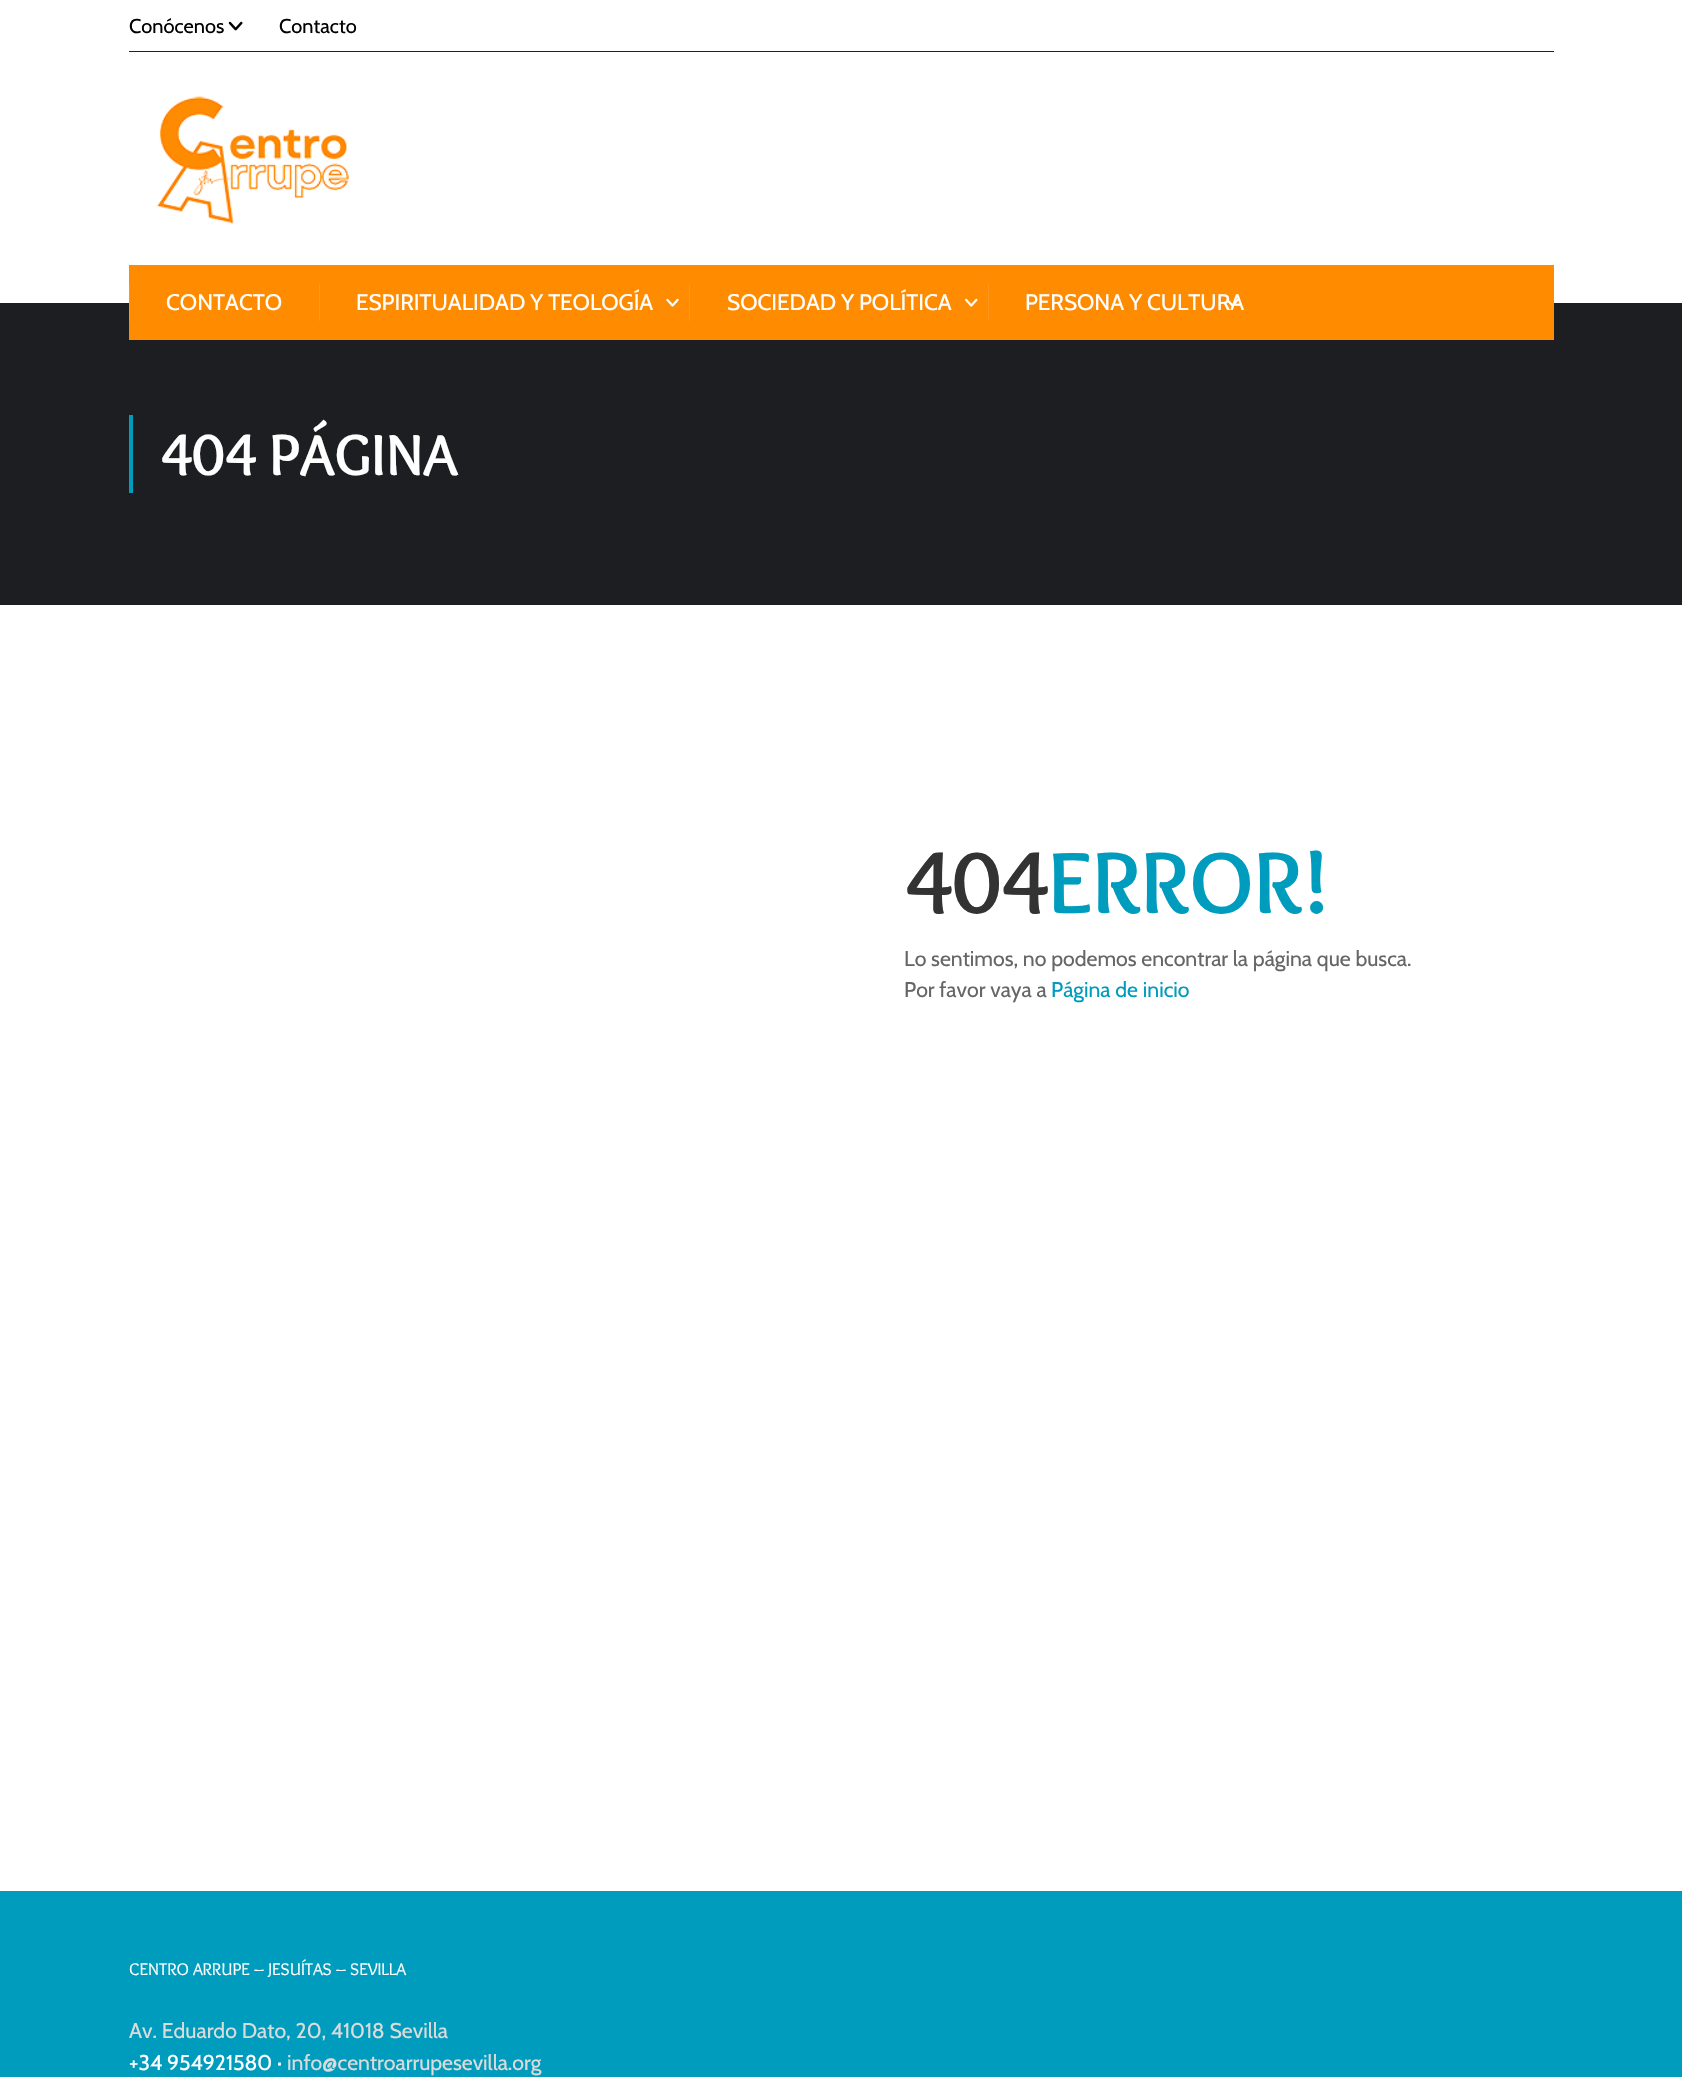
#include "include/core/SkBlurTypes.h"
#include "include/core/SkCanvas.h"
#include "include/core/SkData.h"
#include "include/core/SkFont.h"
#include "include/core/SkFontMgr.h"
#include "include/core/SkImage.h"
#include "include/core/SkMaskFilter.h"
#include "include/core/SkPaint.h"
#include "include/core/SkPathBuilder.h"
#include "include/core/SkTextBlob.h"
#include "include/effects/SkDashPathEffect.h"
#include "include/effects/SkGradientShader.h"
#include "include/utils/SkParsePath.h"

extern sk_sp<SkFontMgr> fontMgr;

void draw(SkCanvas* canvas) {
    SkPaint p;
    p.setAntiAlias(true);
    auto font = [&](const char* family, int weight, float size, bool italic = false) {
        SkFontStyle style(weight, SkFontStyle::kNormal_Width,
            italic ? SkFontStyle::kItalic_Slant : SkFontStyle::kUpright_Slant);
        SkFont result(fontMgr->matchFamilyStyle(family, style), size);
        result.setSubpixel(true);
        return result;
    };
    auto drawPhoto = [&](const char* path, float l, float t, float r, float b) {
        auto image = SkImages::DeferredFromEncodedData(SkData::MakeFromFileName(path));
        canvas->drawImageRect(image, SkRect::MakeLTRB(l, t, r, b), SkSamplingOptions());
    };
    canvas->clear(0xFFFFFFFF);
    auto font1 = font("Cabin", 400, 20);
    p.setColor(0xFF000000);
    canvas->drawString("Conócenos", 129, 33, font1, p);
    drawPhoto("media/1.png", 228, 21, 243, 31);
    canvas->drawString("Contacto", 279, 33, font1, p);
    p.setColor(0xFF212121);
    canvas->drawRect(SkRect::MakeLTRB(129, 51, 1554, 52), p);
    drawPhoto("media/2.png", 157, 96, 349, 224);
    {
        const struct { float l, t, r, b; SkColor color; } items[] = {
            {0, 303, 1682, 605, 0xFF1C1E22},
            {129, 265, 1554, 340, 0xFFFF8B00},
            {129, 284, 130, 321, 0xFFFF971A},
        };
        for (auto [l, t, r, b, color] : items) {
            p.setColor(color);
            canvas->drawRect(SkRect::MakeLTRB(l, t, r, b), p);
        }
    }
    auto font2 = font("Cabin", 400, 22.5f);
    p.setColor(0xFFFFFFFF);
    canvas->drawString("CONTACTO", 166, 310, font2, p);
    p.setColor(0xFFFF971A);
    canvas->drawRect(SkRect::MakeLTRB(319, 284, 320, 321), p);
    p.setColor(0xFFFFFFFF);
    canvas->drawString("ESPIRITUALIDAD Y TEOLOGÍA", 356, 310, font2, p);
    drawPhoto("media/3.png", 666, 298, 679, 307);
    p.setColor(0xFFFF971A);
    canvas->drawRect(SkRect::MakeLTRB(689, 284, 690, 321), p);
    p.setColor(0xFFFFFFFF);
    canvas->drawString("SOCIEDAD Y POLÍTICA", 727, 310, font2, p);
    drawPhoto("media/4.png", 965, 298, 978, 307);
    p.setColor(0xFFFF971A);
    canvas->drawRect(SkRect::MakeLTRB(988, 284, 989, 321), p);
    p.setColor(0xFFFFFFFF);
    canvas->drawString("PERSONA Y CULTURA", 1025, 310, font2, p);
    drawPhoto("media/5.png", 1226, 298, 1239, 307);
    p.setColor(0xFF009CBD);
    canvas->drawRect(SkRect::MakeLTRB(129, 415, 133, 493), p);
    auto font3 = font("Overlock", 700, 60);
    p.setColor(0xFFFFFFFF);
    canvas->drawString("404 PÁGINA", 160, 475, font3, p);
    auto font4 = font("Overlock", 700, 90);
    p.setColor(0xFF333333);
    canvas->drawString("404", 904, 913, font4, p);
    p.setColor(0xFF009CBD);
    canvas->drawString("ERROR!", 1048, 913, font4, p);
    auto font5 = font("Cabin", 400, 21.25f);
    p.setColor(0xFF666666);
    canvas->drawString("Lo sentimos, no podemos encontrar la página que busca.", 904, 966, font5, p);
    canvas->drawString("Por favor vaya a", 904, 997, font5, p);
    p.setColor(0xFF009CBD);
    canvas->drawString("Página de inicio", 1051, 997, font5, p);
    canvas->drawRect(SkRect::MakeLTRB(0, 1891, 1682, 2077), p);
    auto font6 = font("Overlock", 400, 17.5f);
    p.setColor(0xFFFFFFFF);
    canvas->drawString("CENTRO ARRUPE – JESUÍTAS – SEVILLA", 129, 1975, font6, p);
    p.setColor(0xFFDBDBDB);
    canvas->drawString("Av. Eduardo Dato, 20, 41018 Sevilla", 129, 2038, font5, p);
    p.setColor(0xFFFFFFFF);
    canvas->drawString("+34 954921580 ·", 129, 2070, font5, p);
    p.setColor(0xFFDBDBDB);
    canvas->drawString("info@centroarrupesevilla.org", 287, 2070, font5, p);
}
